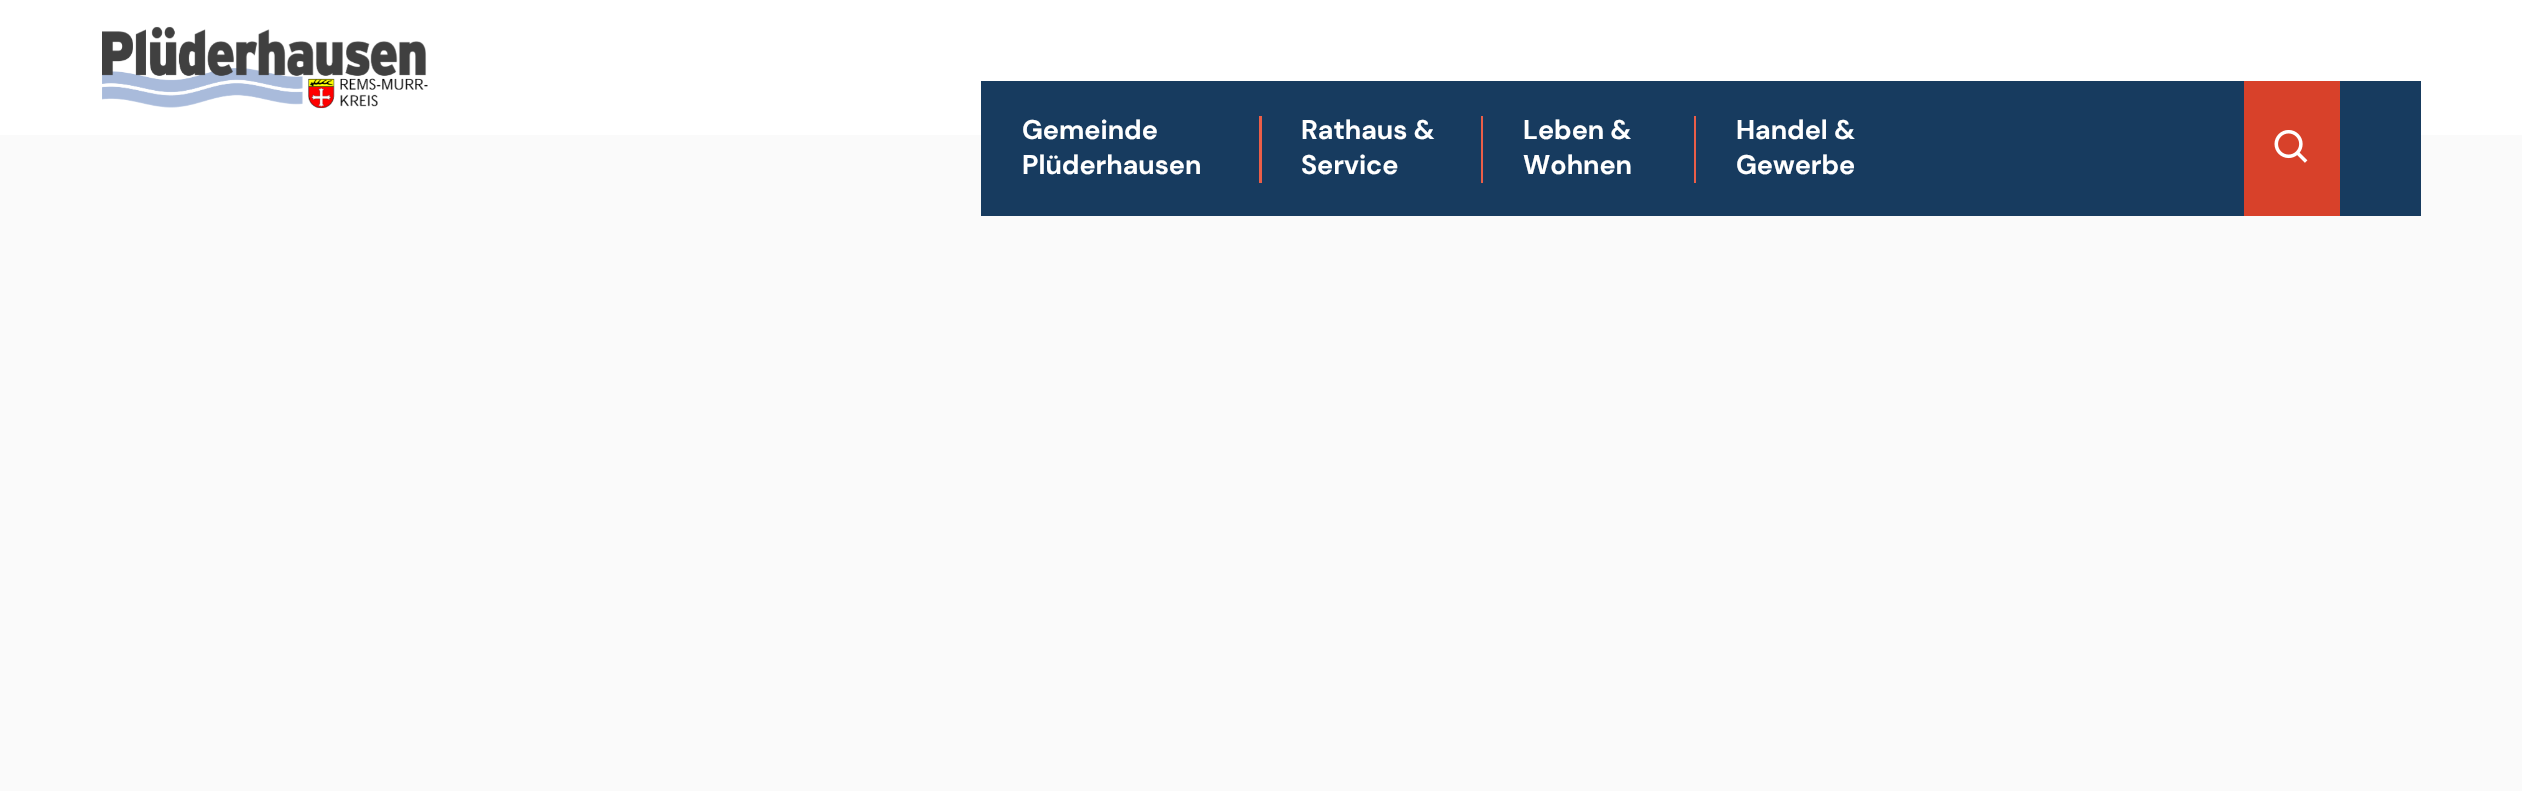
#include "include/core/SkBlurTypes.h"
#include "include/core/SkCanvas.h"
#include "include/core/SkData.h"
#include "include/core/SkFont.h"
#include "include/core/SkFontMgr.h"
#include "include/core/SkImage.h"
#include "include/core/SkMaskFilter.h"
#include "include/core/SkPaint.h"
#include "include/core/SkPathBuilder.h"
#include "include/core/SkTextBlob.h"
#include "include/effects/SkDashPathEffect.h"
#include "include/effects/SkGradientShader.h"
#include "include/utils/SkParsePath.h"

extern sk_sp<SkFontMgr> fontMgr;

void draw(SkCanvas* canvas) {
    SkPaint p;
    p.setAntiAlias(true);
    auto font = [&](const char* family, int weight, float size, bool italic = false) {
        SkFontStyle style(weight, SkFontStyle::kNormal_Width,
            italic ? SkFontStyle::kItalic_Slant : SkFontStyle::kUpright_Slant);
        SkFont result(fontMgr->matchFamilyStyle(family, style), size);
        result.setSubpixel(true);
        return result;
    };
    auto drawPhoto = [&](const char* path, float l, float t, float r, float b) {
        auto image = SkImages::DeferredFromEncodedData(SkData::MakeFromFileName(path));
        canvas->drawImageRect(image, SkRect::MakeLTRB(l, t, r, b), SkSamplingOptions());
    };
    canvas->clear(0xFFFFFFFF);
    drawPhoto("media/1.png", 102, 26, 428, 109);
    p.setColor(0xFFFAFAFA);
    canvas->drawRect(SkRect::MakeLTRB(0, 135, 2522, 791), p);
    p.setColor(0xFF173B5F);
    canvas->drawRect(SkRect::MakeLTRB(981, 81, 2421, 216), p);
    auto font1 = font("DM Sans", 700, 27);
    p.setColor(0xFFFFFFFF);
    canvas->drawString("Gemeinde", 1022, 139, font1, p);
    canvas->drawString("Plüderhausen", 1022, 174, font1, p);
    p.setColor(0xFFEB5E48);
    canvas->drawRect(SkRect::MakeLTRB(1259, 116, 1262, 183), p);
    p.setColor(0xFFFFFFFF);
    canvas->drawString("Rathaus &", 1301, 139, font1, p);
    canvas->drawString("Service", 1301, 174, font1, p);
    p.setColor(0xFFEB5E48);
    canvas->drawRect(SkRect::MakeLTRB(1481, 116, 1483, 183), p);
    p.setColor(0xFFFFFFFF);
    canvas->drawString("Leben &", 1523, 139, font1, p);
    canvas->drawString("Wohnen", 1523, 174, font1, p);
    p.setColor(0xFFEB5E48);
    canvas->drawRect(SkRect::MakeLTRB(1694, 116, 1696, 183), p);
    p.setColor(0xFFFFFFFF);
    canvas->drawString("Handel &", 1736, 139, font1, p);
    canvas->drawString("Gewerbe", 1736, 174, font1, p);
    p.setColor(0xFFD8412A);
    canvas->drawRect(SkRect::MakeLTRB(2244, 81, 2340, 216), p);
    drawPhoto("media/2.png", 2274, 130, 2308, 163);
}
